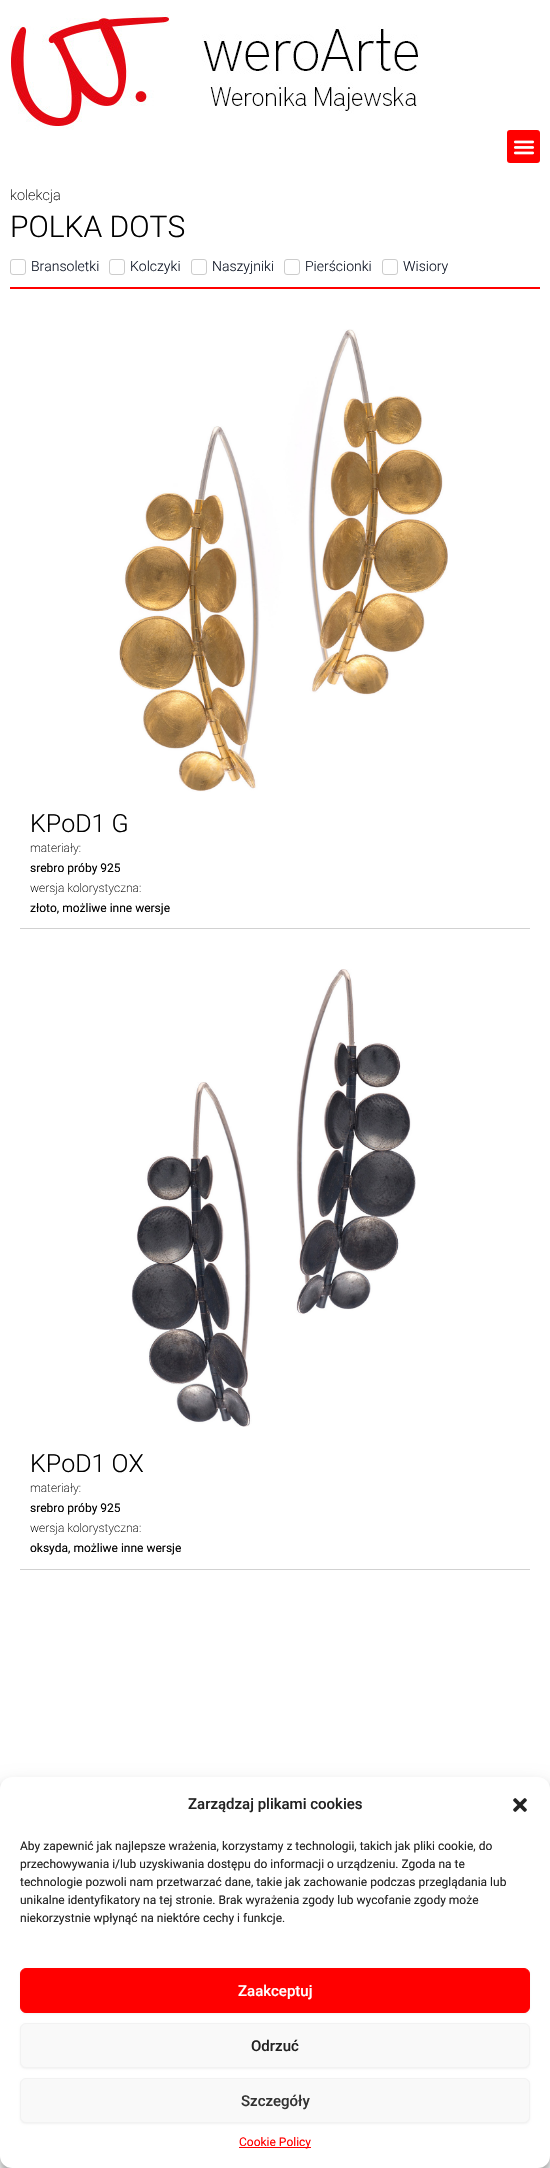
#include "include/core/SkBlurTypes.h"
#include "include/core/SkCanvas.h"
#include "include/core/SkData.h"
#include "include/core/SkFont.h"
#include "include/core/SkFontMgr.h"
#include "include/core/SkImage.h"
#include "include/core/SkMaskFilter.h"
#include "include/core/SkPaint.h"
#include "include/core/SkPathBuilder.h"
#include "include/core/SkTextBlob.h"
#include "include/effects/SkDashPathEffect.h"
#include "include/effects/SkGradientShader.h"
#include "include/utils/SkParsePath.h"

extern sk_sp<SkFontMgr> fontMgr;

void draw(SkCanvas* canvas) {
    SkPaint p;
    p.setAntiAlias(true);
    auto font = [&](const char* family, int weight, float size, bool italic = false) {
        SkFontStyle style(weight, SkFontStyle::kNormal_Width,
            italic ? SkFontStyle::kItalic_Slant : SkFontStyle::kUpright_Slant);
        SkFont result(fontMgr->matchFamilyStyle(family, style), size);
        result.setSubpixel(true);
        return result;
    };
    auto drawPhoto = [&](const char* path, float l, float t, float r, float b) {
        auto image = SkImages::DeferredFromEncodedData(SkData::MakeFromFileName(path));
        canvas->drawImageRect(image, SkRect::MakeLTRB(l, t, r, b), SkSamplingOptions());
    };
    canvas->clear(0xFFFFFFFF);
    drawPhoto("media/1.png", 10, 10, 418, 130);
    p.setColor(0xFFFF0000);
    canvas->drawRoundRect(SkRect::MakeLTRB(507, 130, 540, 163), 3, 3, p);
    drawPhoto("media/2.png", 513, 140, 535, 155);
    canvas->drawRect(SkRect::MakeLTRB(10, 287, 540, 289), p);
    auto font1 = font("Roboto", 200, 14.5f);
    p.setColor(0xFF000000);
    canvas->drawString("kolekcja", 10, 200, font1, p);
    auto font2 = font("Roboto", 300, 30);
    canvas->drawString("POLKA DOTS", 10, 237, font2, p);
    p.setStyle(SkPaint::kStroke_Style);
    p.setStrokeWidth(1);
    p.setColor(0xFFCCCCCC);
    canvas->drawRoundRect(SkRect::MakeLTRB(10.5f, 259.5f, 25.5f, 274.5f), 2.5f, 2.5f, p);
    auto font3 = font("Roboto", 300, 14);
    p.setStyle(SkPaint::kFill_Style);
    p.setColor(0xFF111827);
    canvas->drawString("Bransoletki", 31, 271, font3, p);
    p.setStyle(SkPaint::kStroke_Style);
    p.setColor(0xFFCCCCCC);
    canvas->drawRoundRect(SkRect::MakeLTRB(109.5f, 259.5f, 124.5f, 274.5f), 2.5f, 2.5f, p);
    p.setStyle(SkPaint::kFill_Style);
    p.setColor(0xFF111827);
    canvas->drawString("Kolczyki", 130, 271, font3, p);
    p.setStyle(SkPaint::kStroke_Style);
    p.setColor(0xFFCCCCCC);
    canvas->drawRoundRect(SkRect::MakeLTRB(191.5f, 259.5f, 206.5f, 274.5f), 2.5f, 2.5f, p);
    p.setStyle(SkPaint::kFill_Style);
    p.setColor(0xFF111827);
    canvas->drawString("Naszyjniki", 212, 271, font3, p);
    p.setStyle(SkPaint::kStroke_Style);
    p.setColor(0xFFCCCCCC);
    canvas->drawRoundRect(SkRect::MakeLTRB(284.5f, 259.5f, 299.5f, 274.5f), 2.5f, 2.5f, p);
    p.setStyle(SkPaint::kFill_Style);
    p.setColor(0xFF111827);
    canvas->drawString("Pierścionki", 305, 271, font3, p);
    p.setStyle(SkPaint::kStroke_Style);
    p.setColor(0xFFCCCCCC);
    canvas->drawRoundRect(SkRect::MakeLTRB(382.5f, 259.5f, 397.5f, 274.5f), 2.5f, 2.5f, p);
    p.setStyle(SkPaint::kFill_Style);
    p.setColor(0xFF111827);
    canvas->drawString("Wisiory", 403, 271, font3, p);
    p.setColor(0xFFD1D1D1);
    canvas->drawRect(SkRect::MakeLTRB(20, 928, 530, 929), p);
    drawPhoto("media/3.png", 119, 329, 448, 792);
    auto font4 = font("Roboto", 300, 25);
    p.setColor(0xFF000000);
    canvas->drawString("KPoD1 G", 30, 832, font4, p);
    auto font5 = font("Roboto", 200, 12);
    canvas->drawString("materiały:", 30, 852, font5, p);
    auto font6 = font("Roboto", 400, 12);
    canvas->drawString("srebro próby 925", 30, 872, font6, p);
    canvas->drawString("wersja kolorystyczna:", 30, 892, font5, p);
    canvas->drawString("złoto, możliwe inne wersje", 30, 912, font6, p);
    p.setColor(0xFFD1D1D1);
    canvas->drawRect(SkRect::MakeLTRB(20, 1569, 530, 1570), p);
    drawPhoto("media/4.png", 131, 969, 416, 1427);
    p.setColor(0xFF000000);
    canvas->drawString("KPoD1 OX", 30, 1472, font4, p);
    canvas->drawString("materiały:", 30, 1492, font5, p);
    canvas->drawString("srebro próby 925", 30, 1512, font6, p);
    canvas->drawString("wersja kolorystyczna:", 30, 1532, font5, p);
    canvas->drawString("oksyda, możliwe inne wersje", 30, 1552, font6, p);
    p.setColor(0x3B000000);
    p.setMaskFilter(SkMaskFilter::MakeBlur(kNormal_SkBlurStyle, 3));
    canvas->drawRoundRect(SkRect::MakeLTRB(0, 1783, 550, 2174), 12, 12, p);
    p.setMaskFilter(nullptr);
    p.setColor(0x30000000);
    p.setMaskFilter(SkMaskFilter::MakeBlur(kNormal_SkBlurStyle, 10));
    canvas->drawRoundRect(SkRect::MakeLTRB(0, 1787, 550, 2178), 12, 12, p);
    p.setMaskFilter(nullptr);
    p.setColor(0xFFFFFFFF);
    canvas->drawRoundRect(SkRect::MakeLTRB(0, 1777, 550, 2168), 12, 12, p);
    auto font7 = font("Roboto", 500, 15);
    p.setColor(0xFF222222);
    canvas->drawString("Zarządzaj plikami cookies", 188, 1809, font7, p);
    drawPhoto("media/5.png", 513, 1798, 527, 1812);
    {
        const struct { const char* s; float x, y; } items[] = {
            {"Aby zapewnić jak najlepsze wrażenia, korzystamy z technologii, takich jak pliki cookie, do", 20, 1850},
            {"przechowywania i/lub uzyskiwania dostępu do informacji o urządzeniu. Zgoda na te", 20, 1868},
            {"technologie pozwoli nam przetwarzać dane, takie jak zachowanie podczas przeglądania lub", 20, 1886},
            {"unikalne identyfikatory na tej stronie. Brak wyrażenia zgody lub wycofanie zgody może", 20, 1904},
            {"niekorzystnie wpłynąć na niektóre cechy i funkcje.", 20, 1922},
        };
        for (auto [s, x, y] : items) {
            canvas->drawString(s, x, y, font6, p);
        }
    }
    p.setColor(0x0D000000);
    p.setMaskFilter(SkMaskFilter::MakeBlur(kNormal_SkBlurStyle, 1));
    canvas->drawRoundRect(SkRect::MakeLTRB(20, 1969, 530, 2014), 6, 6, p);
    p.setMaskFilter(nullptr);
    p.setColor(0xFFFF0000);
    canvas->drawRoundRect(SkRect::MakeLTRB(20.5f, 1968.5f, 529.5f, 2012.5f), 5.5f, 5.5f, p);
    p.setStyle(SkPaint::kStroke_Style);
    canvas->drawRoundRect(SkRect::MakeLTRB(20.5f, 1968.5f, 529.5f, 2012.5f), 5.5f, 5.5f, p);
    p.setStyle(SkPaint::kFill_Style);
    p.setColor(0xFFFFFFFF);
    canvas->drawString("Zaakceptuj", 238, 1996, font7, p);
    p.setColor(0x0D000000);
    p.setMaskFilter(SkMaskFilter::MakeBlur(kNormal_SkBlurStyle, 1));
    canvas->drawRoundRect(SkRect::MakeLTRB(20, 2024, 530, 2069), 6, 6, p);
    p.setMaskFilter(nullptr);
    p.setColor(0xFFF9F9F9);
    canvas->drawRoundRect(SkRect::MakeLTRB(20.5f, 2023.5f, 529.5f, 2067.5f), 5.5f, 5.5f, p);
    p.setStyle(SkPaint::kStroke_Style);
    p.setColor(0xFFF2F2F2);
    canvas->drawRoundRect(SkRect::MakeLTRB(20.5f, 2023.5f, 529.5f, 2067.5f), 5.5f, 5.5f, p);
    p.setStyle(SkPaint::kFill_Style);
    p.setColor(0xFF222222);
    canvas->drawString("Odrzuć", 251, 2051, font7, p);
    p.setColor(0x0D000000);
    p.setMaskFilter(SkMaskFilter::MakeBlur(kNormal_SkBlurStyle, 1));
    canvas->drawRoundRect(SkRect::MakeLTRB(20, 2079, 530, 2124), 6, 6, p);
    p.setMaskFilter(nullptr);
    p.setColor(0xFFF9F9F9);
    canvas->drawRoundRect(SkRect::MakeLTRB(20.5f, 2078.5f, 529.5f, 2122.5f), 5.5f, 5.5f, p);
    p.setStyle(SkPaint::kStroke_Style);
    p.setColor(0xFFF2F2F2);
    canvas->drawRoundRect(SkRect::MakeLTRB(20.5f, 2078.5f, 529.5f, 2122.5f), 5.5f, 5.5f, p);
    p.setStyle(SkPaint::kFill_Style);
    p.setColor(0xFF333333);
    canvas->drawString("Szczegóły", 241, 2106, font7, p);
    p.setColor(0xFFFF0000);
    canvas->drawRect(SkRect::MakeLTRB(239, 2147, 311, 2148), p);
    canvas->drawString("Cookie Policy", 239, 2146, font6, p);
}
